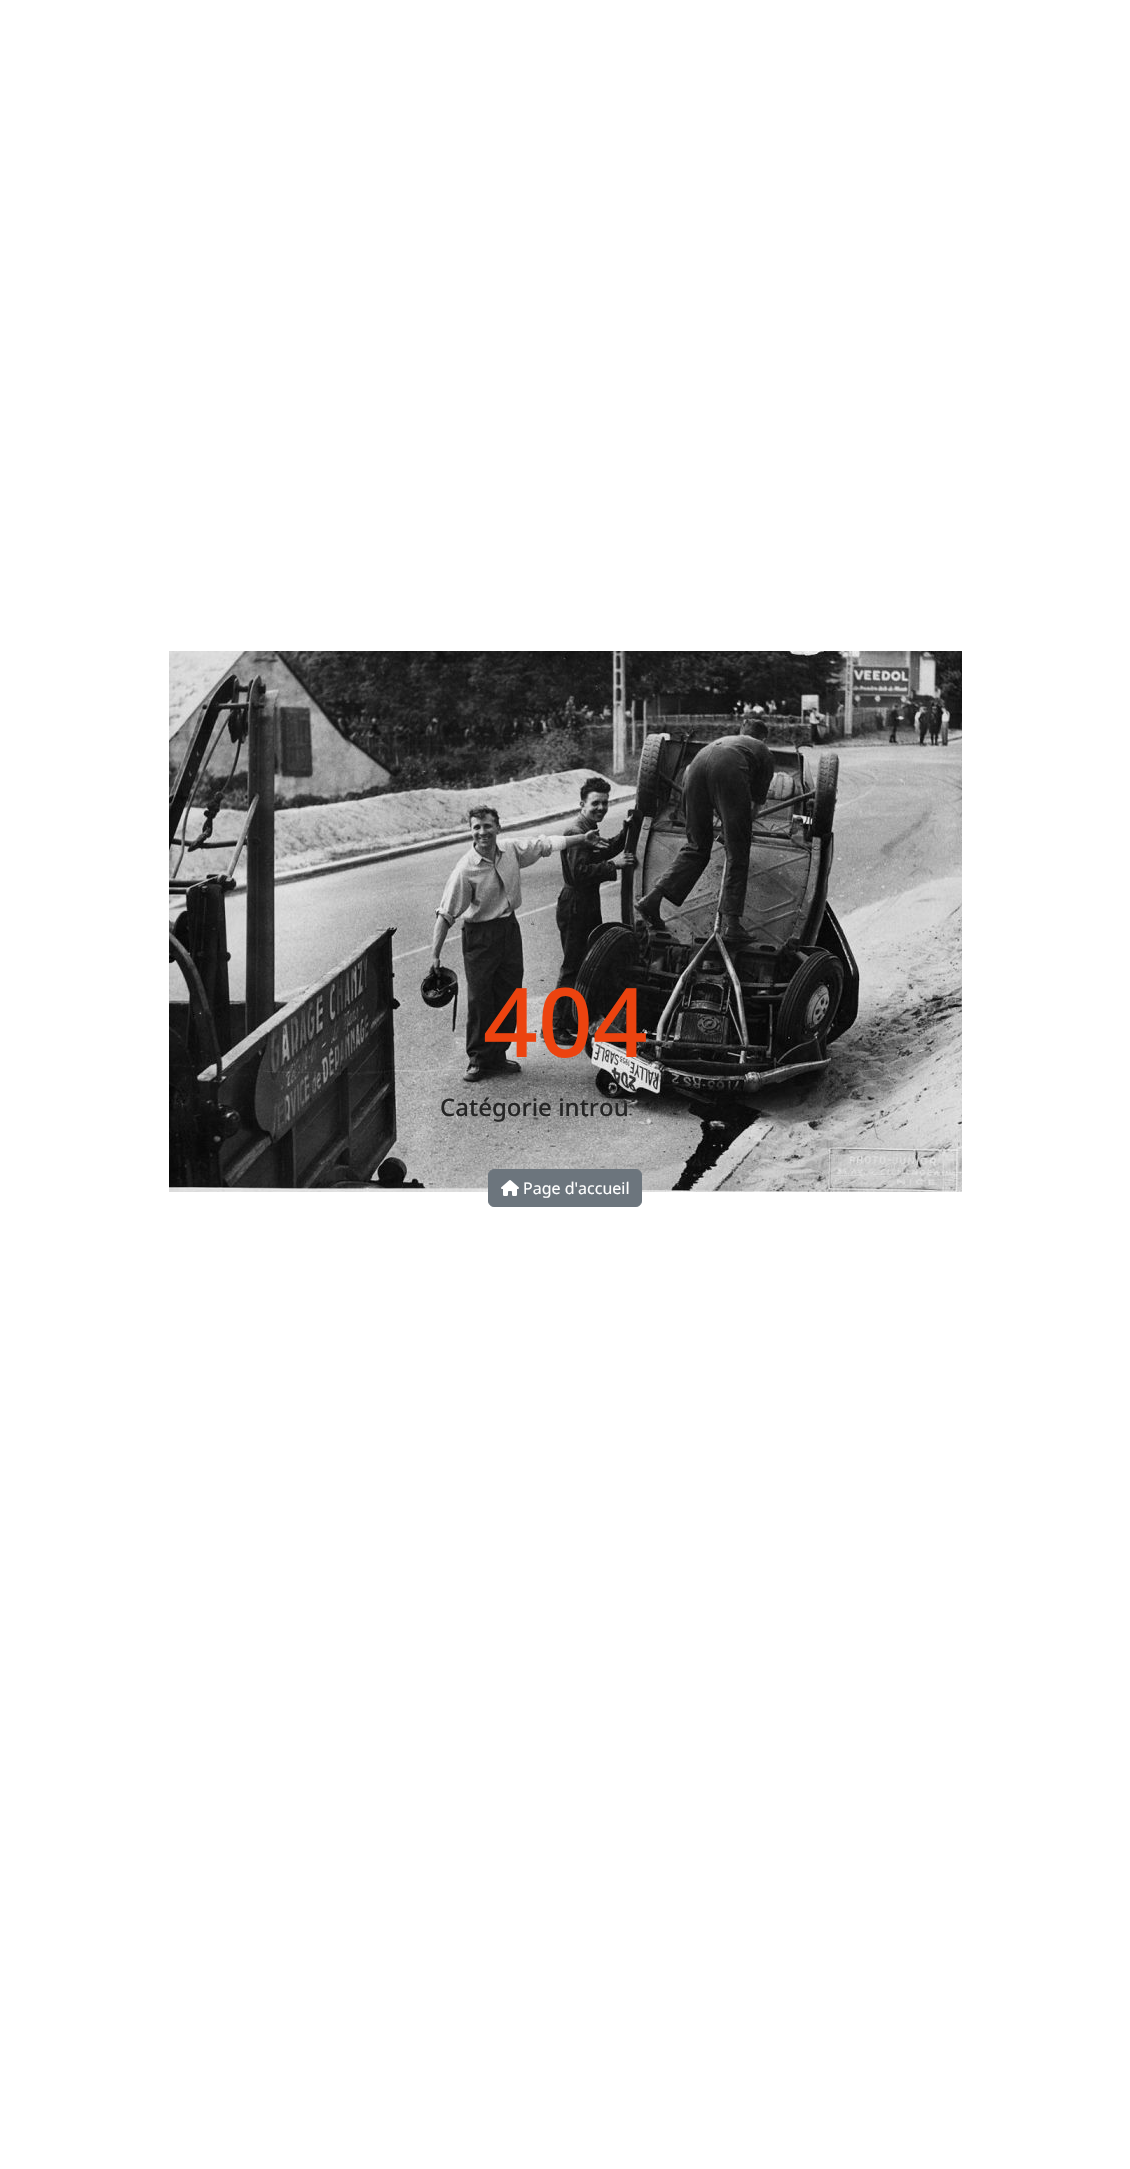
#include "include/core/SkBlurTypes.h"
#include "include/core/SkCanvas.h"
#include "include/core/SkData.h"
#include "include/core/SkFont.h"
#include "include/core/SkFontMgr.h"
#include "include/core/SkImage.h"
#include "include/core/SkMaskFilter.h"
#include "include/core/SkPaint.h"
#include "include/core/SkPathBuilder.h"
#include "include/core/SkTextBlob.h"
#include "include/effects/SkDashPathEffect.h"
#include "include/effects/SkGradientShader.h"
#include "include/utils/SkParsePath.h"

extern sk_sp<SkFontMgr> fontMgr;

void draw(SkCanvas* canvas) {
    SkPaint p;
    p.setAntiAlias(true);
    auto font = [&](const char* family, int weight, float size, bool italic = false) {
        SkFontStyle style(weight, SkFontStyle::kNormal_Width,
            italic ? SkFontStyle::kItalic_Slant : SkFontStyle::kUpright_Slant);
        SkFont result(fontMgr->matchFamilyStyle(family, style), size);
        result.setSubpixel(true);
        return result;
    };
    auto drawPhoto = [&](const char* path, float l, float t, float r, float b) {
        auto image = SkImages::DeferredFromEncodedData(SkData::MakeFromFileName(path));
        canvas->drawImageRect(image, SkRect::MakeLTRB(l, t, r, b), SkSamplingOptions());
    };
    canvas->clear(0xFFFFFFFF);
    drawPhoto("media/1.png", 169, 651, 962, 1192);
    auto font1 = font("Noto Sans", 500, 96);
    p.setColor(0xFFEC430F);
    canvas->drawString("404", 483, 1057, font1, p);
    auto font2 = font("Noto Sans", 500, 24);
    p.setColor(0xFF252525);
    canvas->drawString("Catégorie introu", 440, 1116, font2, p);
    p.setColor(0xFF6C757D);
    canvas->drawRoundRect(SkRect::MakeLTRB(488.5f, 1169.5f, 641.5f, 1206.5f), 5.5f, 5.5f, p);
    p.setStyle(SkPaint::kStroke_Style);
    p.setStrokeWidth(1);
    canvas->drawRoundRect(SkRect::MakeLTRB(488.5f, 1169.5f, 641.5f, 1206.5f), 5.5f, 5.5f, p);
    drawPhoto("media/2.png", 501, 1180, 519, 1196);
    auto font3 = font("Noto Sans", 400, 16);
    p.setStyle(SkPaint::kFill_Style);
    p.setColor(0xFFFFFFFF);
    canvas->drawString("Page d'accueil", 523, 1194, font3, p);
}
